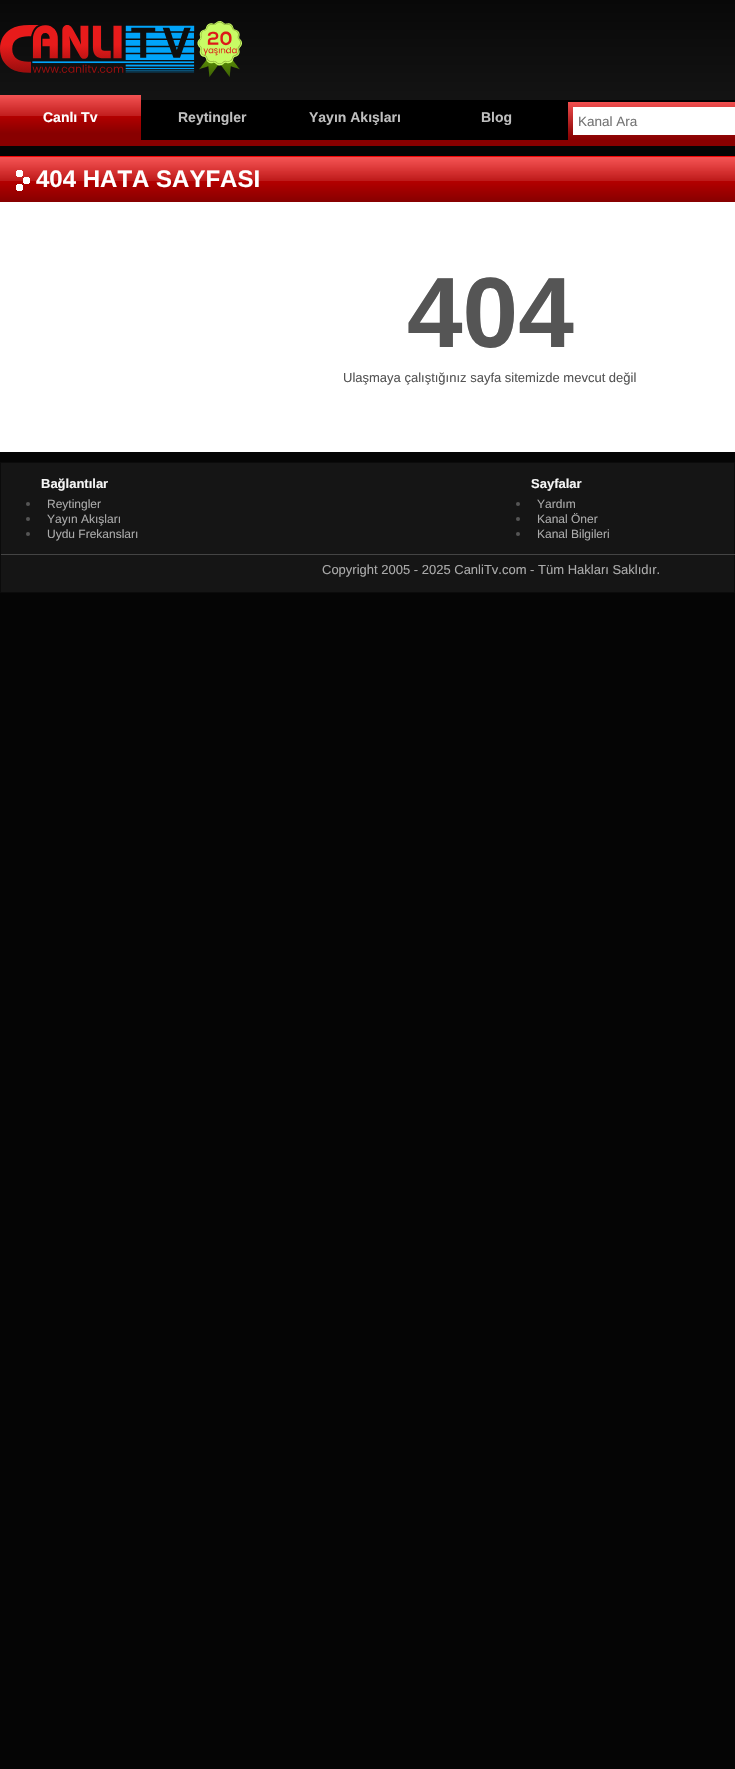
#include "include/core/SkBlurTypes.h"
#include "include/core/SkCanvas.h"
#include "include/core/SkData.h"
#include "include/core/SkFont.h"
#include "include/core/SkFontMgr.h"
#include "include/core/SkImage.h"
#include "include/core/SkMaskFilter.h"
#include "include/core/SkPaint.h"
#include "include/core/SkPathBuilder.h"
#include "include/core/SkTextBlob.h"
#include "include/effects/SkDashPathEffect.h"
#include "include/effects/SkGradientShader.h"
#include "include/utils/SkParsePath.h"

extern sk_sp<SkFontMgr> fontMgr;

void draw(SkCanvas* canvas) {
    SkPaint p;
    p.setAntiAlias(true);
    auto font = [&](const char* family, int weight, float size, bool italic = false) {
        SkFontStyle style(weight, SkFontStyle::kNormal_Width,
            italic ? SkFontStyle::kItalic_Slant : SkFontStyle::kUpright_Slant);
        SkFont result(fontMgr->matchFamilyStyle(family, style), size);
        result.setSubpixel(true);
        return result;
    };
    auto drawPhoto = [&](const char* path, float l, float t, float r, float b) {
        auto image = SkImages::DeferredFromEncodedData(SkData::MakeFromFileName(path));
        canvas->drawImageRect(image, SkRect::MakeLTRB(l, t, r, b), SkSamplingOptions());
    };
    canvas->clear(0xFF050505);
    {
        const SkColor colors[] = {0xFF131313, 0xFF080808};
        const float stops[] = {0, 1};
        const SkPoint ends[] = {{368, 95}, {368, 0}};
        p.setShader(SkGradientShader::MakeLinear(ends, colors, stops, 2, SkTileMode::kClamp));
        p.setAlpha(255);
    }
    canvas->drawRect(SkRect::MakeLTRB(0, 0, 735, 95), p);
    drawPhoto("media/1.png", 0, 21, 242, 77);
    p.setShader(nullptr);
    {
        const struct { float l, t, r, b; SkColor color; } items[] = {
            {141, 95, 735, 100, 0xFF131313},
            {141, 100, 735, 140, 0xFF000000},
            {0, 140, 735, 146, 0xFF880000},
        };
        for (auto [l, t, r, b, color] : items) {
            p.setColor(color);
            canvas->drawRect(SkRect::MakeLTRB(l, t, r, b), p);
        }
    }
    {
        const SkColor colors[] = {0xFFF35353, 0xFFC21E1E, 0xFFB40000, 0xFF880000, 0xFF880000};
        const float stops[] = {0, 0.46f, 0.46f, 0.85f, 1};
        const SkPoint ends[] = {{71, 95}, {71, 140}};
        p.setShader(SkGradientShader::MakeLinear(ends, colors, stops, 5, SkTileMode::kClamp));
        p.setAlpha(255);
    }
    canvas->drawRect(SkRect::MakeLTRB(0, 95, 141, 140), p);
    auto font1 = font("Liberation Sans", 700, 14);
    p.setShader(nullptr);
    p.setColor(0xFFFFFFFF);
    canvas->drawString("Canlı Tv", 43, 122, font1, p);
    p.setColor(0xFFBFBFBF);
    {
        const struct { const char* s; float x, y; } items[] = {
            {"Reytingler", 178, 122},
            {"Yayın Akışları", 309, 122},
            {"Blog", 481, 122},
        };
        for (auto [s, x, y] : items) {
            canvas->drawString(s, x, y, font1, p);
        }
    }
    {
        const SkColor colors[] = {0xFFF14F4F, 0xFF9A0F0F, 0xFF920707, 0xFF880000};
        const float stops[] = {0, 0.75f, 0.85f, 1};
        const SkPoint ends[] = {{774, 102}, {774, 140}};
        p.setShader(SkGradientShader::MakeLinear(ends, colors, stops, 4, SkTileMode::kClamp));
        p.setAlpha(255);
    }
    canvas->drawRect(SkRect::MakeLTRB(568, 102, 735, 140), p);
    p.setShader(nullptr);
    p.setColor(0xFFFFFFFF);
    canvas->drawRect(SkRect::MakeLTRB(573, 107, 735, 135), p);
    auto font2 = font("Liberation Sans", 400, 13.5f);
    p.setColor(0xFF757575);
    canvas->drawString("Kanal Ara", 578, 126, font2, p);
    drawPhoto("media/2.png", 0, 156, 735, 202);
    drawPhoto("media/3.png", 16, 170, 30, 191);
    auto font3 = font("Liberation Sans", 700, 24);
    p.setColor(0xFFFFFFFF);
    canvas->drawString("404 HATA SAYFASI", 36, 187, font3, p);
    canvas->drawRect(SkRect::MakeLTRB(0, 202, 735, 452), p);
    auto font4 = font("Liberation Sans", 700, 100);
    p.setColor(0xFF555555);
    canvas->drawString("404", 407, 347, font4, p);
    auto font5 = font("Liberation Sans", 400, 13);
    canvas->drawString("Ulaşmaya çalıştığınız sayfa sitemizde mevcut değil", 343, 382, font5, p);
    p.setColor(0xFF151515);
    canvas->drawRect(SkRect::MakeLTRB(0.5f, 462.5f, 734.5f, 592.5f), p);
    p.setStyle(SkPaint::kStroke_Style);
    p.setStrokeWidth(1);
    p.setColor(0xFF0B0B0B);
    canvas->drawRect(SkRect::MakeLTRB(0.5f, 462.5f, 734.5f, 592.5f), p);
    auto font6 = font("Liberation Sans", 700, 13);
    p.setStyle(SkPaint::kFill_Style);
    p.setColor(0xFFF5F5F5);
    canvas->drawString("Bağlantılar", 41, 488, font6, p);
    p.setColor(0xFF555555);
    canvas->drawCircle(28, 504, 2, p);
    auto font7 = font("Liberation Sans", 400, 12);
    p.setColor(0xFFAAAAAA);
    canvas->drawString("Reytingler", 47, 508, font7, p);
    p.setColor(0xFF555555);
    canvas->drawCircle(28, 519, 2, p);
    p.setColor(0xFFAAAAAA);
    canvas->drawString("Yayın Akışları", 47, 523, font7, p);
    p.setColor(0xFF555555);
    canvas->drawCircle(28, 534, 2, p);
    p.setColor(0xFFAAAAAA);
    canvas->drawString("Uydu Frekansları", 47, 538, font7, p);
    p.setColor(0xFFF5F5F5);
    canvas->drawString("Sayfalar", 531, 488, font6, p);
    p.setColor(0xFF555555);
    canvas->drawCircle(518, 504, 2, p);
    p.setColor(0xFFAAAAAA);
    canvas->drawString("Yardım", 537, 508, font7, p);
    p.setColor(0xFF555555);
    canvas->drawCircle(518, 519, 2, p);
    p.setColor(0xFFAAAAAA);
    canvas->drawString("Kanal Öner", 537, 523, font7, p);
    p.setColor(0xFF555555);
    canvas->drawCircle(518, 534, 2, p);
    p.setColor(0xFFAAAAAA);
    canvas->drawString("Kanal Bilgileri", 537, 538, font7, p);
    p.setColor(0xFF444444);
    canvas->drawRect(SkRect::MakeLTRB(1, 554, 735, 555), p);
    p.setColor(0xFFAAAAAA);
    canvas->drawString("Copyright 2005 - 2025 CanliTv.com - Tüm Hakları Saklıdır.", 322, 574, font5, p);
}
